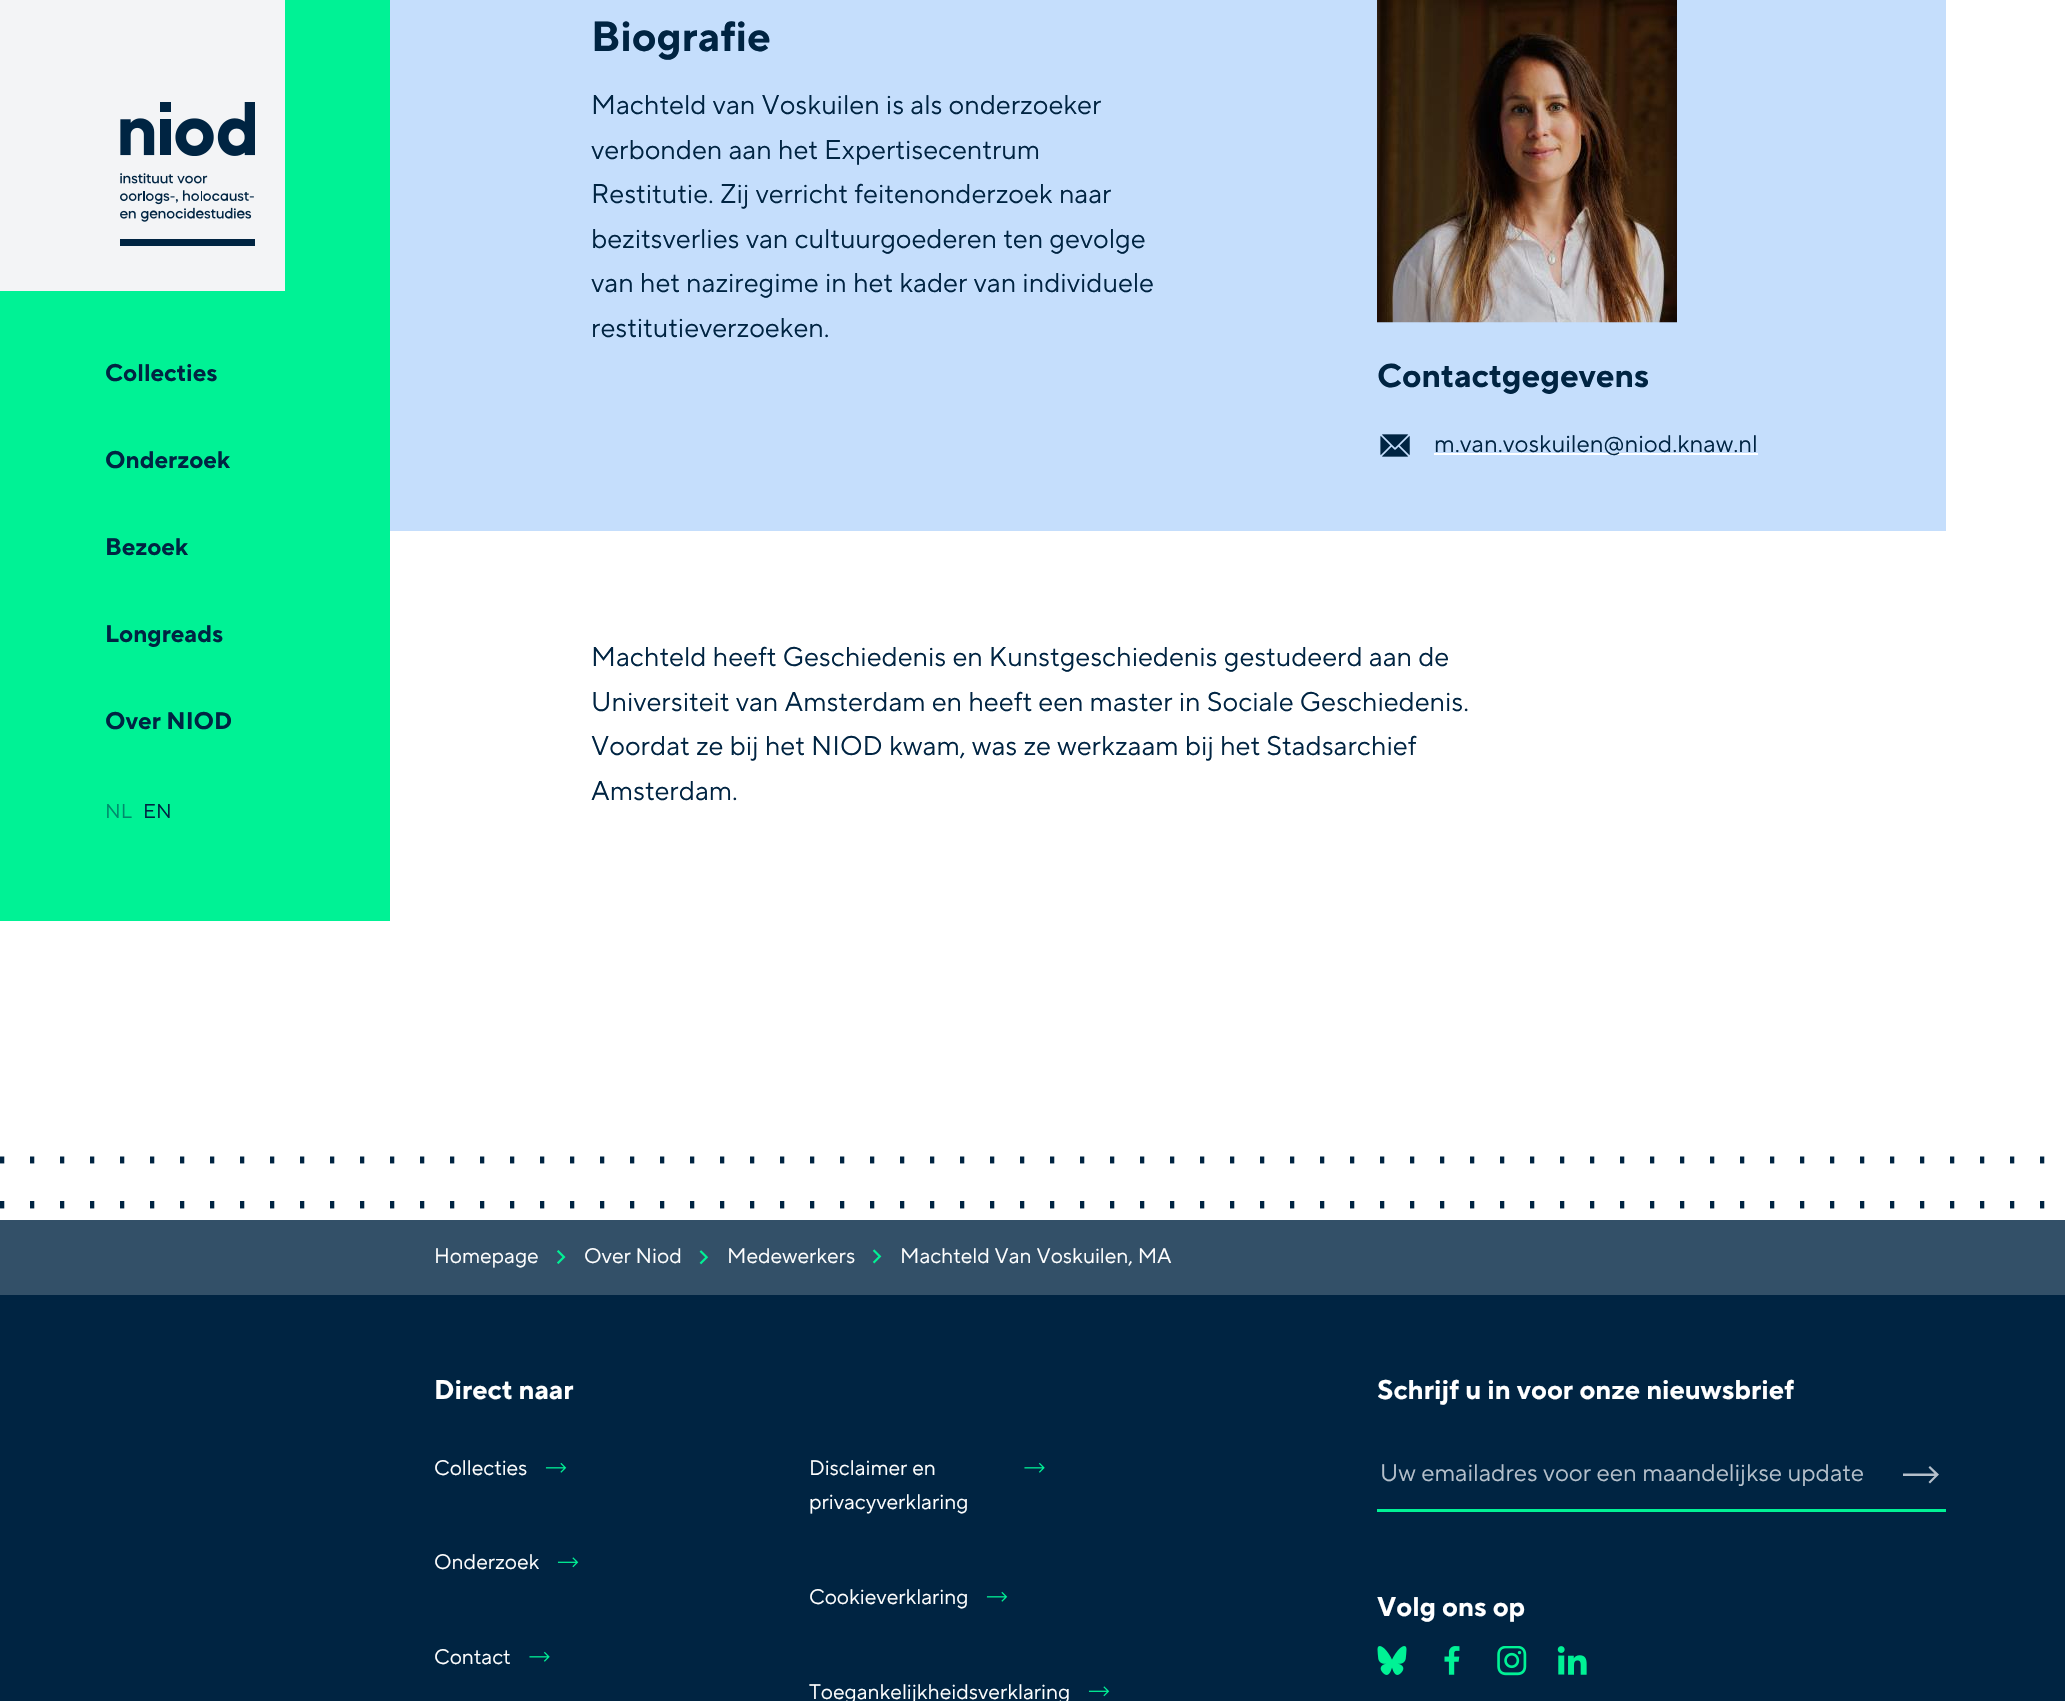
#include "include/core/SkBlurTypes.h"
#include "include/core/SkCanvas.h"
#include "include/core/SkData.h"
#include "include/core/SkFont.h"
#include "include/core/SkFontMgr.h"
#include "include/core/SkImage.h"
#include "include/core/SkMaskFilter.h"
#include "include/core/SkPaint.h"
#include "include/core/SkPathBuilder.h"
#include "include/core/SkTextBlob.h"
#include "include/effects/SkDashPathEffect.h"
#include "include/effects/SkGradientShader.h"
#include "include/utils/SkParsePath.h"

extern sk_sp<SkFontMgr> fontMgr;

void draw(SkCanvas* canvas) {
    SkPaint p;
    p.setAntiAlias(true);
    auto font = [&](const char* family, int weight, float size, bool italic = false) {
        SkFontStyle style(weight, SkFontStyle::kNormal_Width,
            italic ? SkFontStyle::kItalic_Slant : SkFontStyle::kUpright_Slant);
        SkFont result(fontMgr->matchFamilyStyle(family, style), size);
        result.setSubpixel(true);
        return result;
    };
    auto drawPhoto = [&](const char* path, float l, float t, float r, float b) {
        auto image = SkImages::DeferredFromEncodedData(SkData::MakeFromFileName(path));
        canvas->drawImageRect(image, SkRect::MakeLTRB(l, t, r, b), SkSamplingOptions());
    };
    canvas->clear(0xFFFFFFFF);
    p.setColor(0xFF00F295);
    canvas->drawRect(SkRect::MakeLTRB(285, 0, 390, 291), p);
    p.setColor(0xFFF3F4F6);
    canvas->drawRect(SkRect::MakeLTRB(0, 0, 285, 291), p);
    drawPhoto("media/1.png", 120, 102, 255, 246);
    p.setColor(0xFF00F295);
    canvas->drawRect(SkRect::MakeLTRB(0, 291, 390, 921), p);
    auto font1 = font("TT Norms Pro", 700, 24);
    p.setColor(0xFF002442);
    {
        const struct { const char* s; float x, y; } items[] = {
            {"Collecties", 105, 381},
            {"Onderzoek", 105, 468},
            {"Bezoek", 105, 555},
            {"Longreads", 105, 642},
            {"Over NIOD", 105, 729},
        };
        for (auto [s, x, y] : items) {
            canvas->drawString(s, x, y, font1, p);
        }
    }
    auto font2 = font("TT Norms Pro", 400, 20);
    p.setColor(0xFF008B6C);
    canvas->drawString("NL", 105, 818, font2, p);
    p.setColor(0xFF002442);
    canvas->drawString("EN", 143, 818, font2, p);
    p.setColor(0xFFC5DEFC);
    canvas->drawRect(SkRect::MakeLTRB(390, 0, 1946, 531), p);
    auto font3 = font("TT Norms Pro", 700, 42);
    p.setColor(0xFF002442);
    canvas->drawString("Biografie", 591, 51, font3, p);
    auto font4 = font("TT Norms Pro", 400, 27);
    {
        const struct { const char* s; float x, y; } items[] = {
            {"Machteld van Voskuilen is als onderzoeker", 591, 114},
            {"verbonden aan het Expertisecentrum", 591, 159},
            {"Restitutie. Zij verricht feitenonderzoek naar", 591, 203},
            {"bezitsverlies van cultuurgoederen ten gevolge", 591, 248},
            {"van het naziregime in het kader van individuele", 591, 292},
            {"restitutieverzoeken.", 591, 337},
        };
        for (auto [s, x, y] : items) {
            canvas->drawString(s, x, y, font4, p);
        }
    }
    drawPhoto("media/2.png", 1377, 0, 1677, 323);
    auto font5 = font("TT Norms Pro", 700, 33);
    canvas->drawString("Contactgegevens", 1377, 387, font5, p);
    drawPhoto("media/3.png", 1380, 434, 1410, 457);
    p.setColor(0xFFFFFFFF);
    canvas->drawRect(SkRect::MakeLTRB(1434, 453, 1758, 455), p);
    auto font6 = font("TT Norms Pro", 400, 24);
    p.setColor(0xFF002442);
    canvas->drawString("m.van.voskuilen@niod.knaw.nl", 1434, 452, font6, p);
    {
        const struct { const char* s; float x, y; } items[] = {
            {"Machteld heeft Geschiedenis en Kunstgeschiedenis gestudeerd aan de", 591, 666},
            {"Universiteit van Amsterdam en heeft een master in Sociale Geschiedenis.", 591, 711},
            {"Voordat ze bij het NIOD kwam, was ze werkzaam bij het Stadsarchief", 591, 755},
            {"Amsterdam.", 591, 800},
        };
        for (auto [s, x, y] : items) {
            canvas->drawString(s, x, y, font4, p);
        }
    }
    p.setColor(0xFF335068);
    canvas->drawRect(SkRect::MakeLTRB(0, 1220, 2065, 1295), p);
    drawPhoto("media/4.png", 0, 1156, 2045, 1209);
    auto font7 = font("TT Norms Pro", 400, 21);
    p.setColor(0xFFFFFFFF);
    canvas->drawString("Homepage", 434, 1263, font7, p);
    drawPhoto("media/5.png", 557, 1250, 566, 1264);
    canvas->drawString("Over Niod", 584, 1263, font7, p);
    drawPhoto("media/6.png", 699, 1250, 709, 1265);
    canvas->drawString("Medewerkers", 727, 1263, font7, p);
    drawPhoto("media/7.png", 872, 1249, 882, 1264);
    canvas->drawString("Machteld Van Voskuilen, MA", 900, 1263, font7, p);
    p.setColor(0xFF002442);
    canvas->drawRect(SkRect::MakeLTRB(0, 1295, 2065, 1701), p);
    auto font8 = font("TT Norms Pro", 700, 27);
    p.setColor(0xFFFFFFFF);
    canvas->drawString("Direct naar", 434, 1399, font8, p);
    canvas->drawString("Collecties", 434, 1475, font7, p);
    drawPhoto("media/8.png", 545, 1462, 567, 1473);
    canvas->drawString("Disclaimer en", 809, 1475, font7, p);
    drawPhoto("media/9.png", 1024, 1462, 1045, 1473);
    canvas->drawString("privacyverklaring", 809, 1509, font7, p);
    canvas->drawString("Onderzoek", 434, 1569, font7, p);
    drawPhoto("media/10.png", 557, 1557, 579, 1568);
    canvas->drawString("Cookieverklaring", 809, 1604, font7, p);
    drawPhoto("media/8.png", 986, 1591, 1008, 1602);
    canvas->drawString("Contact", 434, 1664, font7, p);
    drawPhoto("media/9.png", 529, 1651, 550, 1662);
    canvas->drawString("Toegankelijkheidsverklaring", 809, 1699, font7, p);
    drawPhoto("media/10.png", 1088, 1686, 1110, 1697);
    canvas->drawString("Schrijf u in voor onze nieuwsbrief", 1377, 1399, font8, p);
    p.setColor(0xFF00F295);
    canvas->drawRect(SkRect::MakeLTRB(1377, 1509, 1946, 1512), p);
    p.setColor(0xFFB5C0CB);
    canvas->drawString("Uw emailadres voor een maandelijkse update", 1380, 1481, font6, p);
    canvas->drawPath(SkPathBuilder(SkPathFillType::kEvenOdd).moveTo(1934.5f, 1473.5f).lineTo(1928.5f, 1467.5f).lineTo(1930, 1466).lineTo(1939, 1474.5f).lineTo(1930, 1483.5f).lineTo(1928.5f, 1482).lineTo(1934.5f, 1476).lineTo(1903, 1476).lineTo(1903, 1473.5f).close().detach(), p);
    p.setColor(0xFFFFFFFF);
    canvas->drawString("Volg ons op", 1377, 1616, font8, p);
    drawPhoto("media/11.png", 1377, 1646, 1407, 1675);
    drawPhoto("media/12.png", 1444, 1646, 1460, 1675);
    drawPhoto("media/13.png", 1497, 1646, 1527, 1676);
    drawPhoto("media/14.png", 1557, 1646, 1587, 1675);
}
